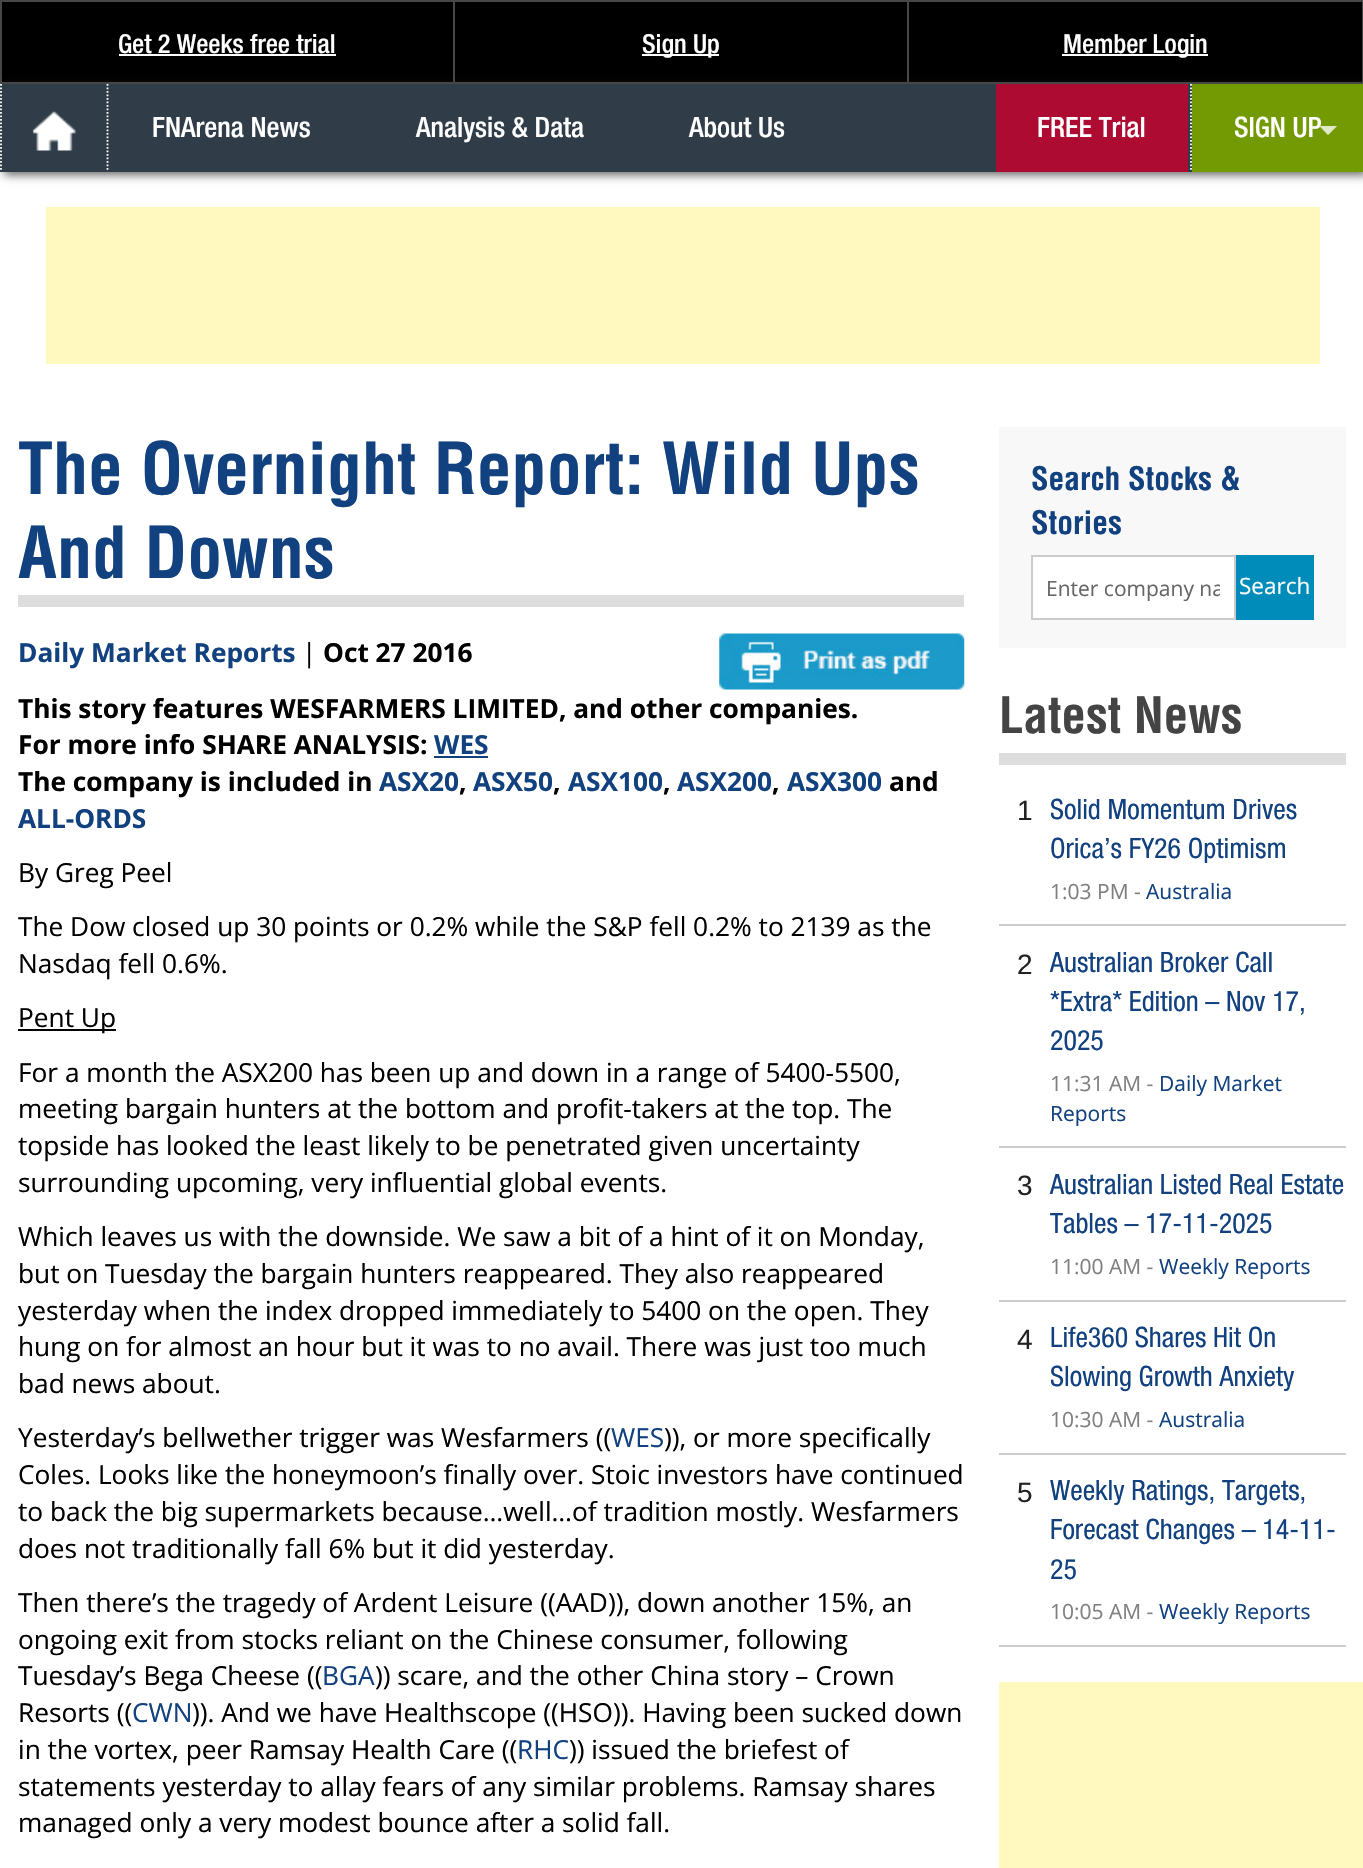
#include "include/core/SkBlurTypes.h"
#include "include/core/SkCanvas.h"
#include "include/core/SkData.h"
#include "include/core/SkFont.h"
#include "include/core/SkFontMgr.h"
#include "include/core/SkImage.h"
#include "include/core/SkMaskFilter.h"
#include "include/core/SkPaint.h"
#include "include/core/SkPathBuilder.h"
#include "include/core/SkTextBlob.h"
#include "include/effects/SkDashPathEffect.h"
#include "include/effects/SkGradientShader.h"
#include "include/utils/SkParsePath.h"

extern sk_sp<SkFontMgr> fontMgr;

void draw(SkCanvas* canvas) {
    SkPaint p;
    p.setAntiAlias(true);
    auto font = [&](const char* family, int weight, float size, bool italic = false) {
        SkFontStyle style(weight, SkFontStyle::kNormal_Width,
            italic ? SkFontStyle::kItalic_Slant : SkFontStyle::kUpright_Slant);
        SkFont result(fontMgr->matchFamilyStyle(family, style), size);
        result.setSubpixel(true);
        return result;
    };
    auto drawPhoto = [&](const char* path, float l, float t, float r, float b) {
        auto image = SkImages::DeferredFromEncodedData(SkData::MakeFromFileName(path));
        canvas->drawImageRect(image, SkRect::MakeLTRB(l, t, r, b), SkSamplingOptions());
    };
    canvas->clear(0xFFFFFFFF);
    p.setColor(0xFF000000);
    canvas->drawRect(SkRect::MakeLTRB(2, 2, 1362, 82), p);
    p.setColor(0xFF666666);
    p.setMaskFilter(SkMaskFilter::MakeBlur(kNormal_SkBlurStyle, 4.5f));
    canvas->drawRect(SkRect::MakeLTRB(4, 88, 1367, 175), p);
    p.setMaskFilter(nullptr);
    p.setStyle(SkPaint::kStroke_Style);
    p.setStrokeWidth(2);
    p.setColor(0xFF474747);
    canvas->drawRect(SkRect::MakeLTRB(1, 1, 454, 83), p);
    auto font1 = font("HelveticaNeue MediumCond", 500, 26.25f);
    p.setStyle(SkPaint::kFill_Style);
    p.setColor(0xFFFFFFFF);
    canvas->drawString("Get 2 Weeks free trial", 118, 53, font1, p);
    {
        const struct { float l, t, r, b; SkColor color; } items[] = {
            {119, 54, 336, 56, 0xFFFFFFFF},
            {455, 0, 908, 2, 0xFF474747},
            {907, 0, 909, 84, 0xFF474747},
            {455, 82, 908, 84, 0xFF474747},
            {642, 54, 719, 56, 0xFFFFFFFF},
        };
        for (auto [l, t, r, b, color] : items) {
            p.setColor(color);
            canvas->drawRect(SkRect::MakeLTRB(l, t, r, b), p);
        }
    }
    canvas->drawString("Sign Up", 642, 53, font1, p);
    {
        const struct { float l, t, r, b; SkColor color; } items[] = {
            {908, 0, 1363, 2, 0xFF474747},
            {1362, 0, 1363, 84, 0xFF474747},
            {908, 82, 1363, 84, 0xFF474747},
            {1062, 54, 1208, 56, 0xFFFFFFFF},
        };
        for (auto [l, t, r, b, color] : items) {
            p.setColor(color);
            canvas->drawRect(SkRect::MakeLTRB(l, t, r, b), p);
        }
    }
    canvas->drawString("Member Login", 1063, 53, font1, p);
    p.setColor(0xFF303D48);
    canvas->drawRect(SkRect::MakeLTRB(0, 84, 1192, 172), p);
    p.setStyle(SkPaint::kStroke_Style);
    p.setStrokeWidth(1.8f);
    p.setColor(0xFFFFFFFF);
    p.setPathEffect(SkDashPathEffect::Make({{1.75f, 1.75f}}, 0));
    canvas->drawPath(SkPathBuilder().moveTo(107.5f, 84).lineTo(107.5f, 171.5f).detach(), p);
    p.setPathEffect(nullptr);
    p.setPathEffect(SkDashPathEffect::Make({{1.75f, 1.75f}}, 0));
    canvas->drawPath(SkPathBuilder().moveTo(1, 84).lineTo(1, 171.5f).detach(), p);
    p.setPathEffect(nullptr);
    drawPhoto("media/1.png", 32, 111, 76, 151);
    auto font2 = font("HelveticaNeue MediumCond", 500, 28);
    p.setStyle(SkPaint::kFill_Style);
    canvas->drawString("FNArena News", 152, 137, font2, p);
    p.setColor(0xFF739A03);
    canvas->drawRect(SkRect::MakeLTRB(1192, 84, 1363, 172), p);
    p.setColor(0xFFFFFFFF);
    canvas->drawString("SIGN UP", 1234, 137, font2, p);
    p.setColor(0xFFABC268);
    canvas->drawPath(SkPathBuilder().moveTo(1319.5f, 126).lineTo(1337, 126).lineTo(1328, 135).close().detach(), p);
    p.setColor(0xFFFFFFFF);
    canvas->drawString("Analysis & Data", 416, 137, font2, p);
    p.setColor(0x66FFFFFF);
    canvas->drawPath(SkPathBuilder().moveTo(1319.5f, 126).lineTo(1337, 126).lineTo(1328, 135).close().detach(), p);
    p.setColor(0xFFFFFFFF);
    canvas->drawString("About Us", 689, 137, font2, p);
    p.setColor(0x66FFFFFF);
    canvas->drawPath(SkPathBuilder().moveTo(1319.5f, 126).lineTo(1337, 126).lineTo(1328, 135).close().detach(), p);
    p.setColor(0xFFAD0B32);
    canvas->drawRect(SkRect::MakeLTRB(996, 84, 1188, 172), p);
    p.setColor(0xFFFFFFFF);
    canvas->drawString("FREE Trial", 1037, 137, font2, p);
    p.setStyle(SkPaint::kStroke_Style);
    p.setPathEffect(SkDashPathEffect::Make({{1.75f, 1.75f}}, 0));
    canvas->drawPath(SkPathBuilder().moveTo(1191, 84).lineTo(1191, 171.5f).detach(), p);
    p.setPathEffect(nullptr);
    p.setStyle(SkPaint::kFill_Style);
    p.setColor(0xFFFFF9C0);
    canvas->drawRect(SkRect::MakeLTRB(46, 207, 1320, 364), p);
    p.setColor(0xFFDDDDDD);
    canvas->drawRect(SkRect::MakeLTRB(18, 595, 964, 607), p);
    auto font3 = font("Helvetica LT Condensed", 700, 70);
    p.setColor(0xFF12417F);
    canvas->drawString("The Overnight Report: Wild Ups", 18, 494, font3, p);
    canvas->drawString("And Downs", 18, 578, font3, p);
    auto font4 = font("Open Sans", 700, 26.25f);
    canvas->drawString("Daily Market Reports", 18, 662, font4, p);
    auto font5 = font("Open Sans", 400, 26.25f);
    p.setColor(0xFF000000);
    canvas->drawString("|", 302, 662, font5, p);
    canvas->drawString("Oct 27 2016", 323, 662, font4, p);
    drawPhoto("media/2.png", 719, 633, 965, 690);
    canvas->drawString("This story features WESFARMERS LIMITED, and other companies.", 18, 718, font4, p);
    canvas->drawString("For more info SHARE ANALYSIS:", 18, 754, font4, p);
    p.setColor(0xFF12417F);
    canvas->drawString("WES", 434, 754, font4, p);
    canvas->drawRect(SkRect::MakeLTRB(434, 756, 488, 758), p);
    p.setColor(0xFF000000);
    canvas->drawString("The company is included in", 18, 791, font4, p);
    p.setColor(0xFF12417F);
    canvas->drawString("ASX20", 379, 791, font4, p);
    p.setColor(0xFF000000);
    canvas->drawString(",", 459, 791, font4, p);
    p.setColor(0xFF12417F);
    canvas->drawString("ASX50", 473, 791, font4, p);
    p.setColor(0xFF000000);
    canvas->drawString(",", 553, 791, font4, p);
    p.setColor(0xFF12417F);
    canvas->drawString("ASX100", 568, 791, font4, p);
    p.setColor(0xFF000000);
    canvas->drawString(",", 663, 791, font4, p);
    p.setColor(0xFF12417F);
    canvas->drawString("ASX200", 677, 791, font4, p);
    p.setColor(0xFF000000);
    canvas->drawString(",", 772, 791, font4, p);
    p.setColor(0xFF12417F);
    canvas->drawString("ASX300", 787, 791, font4, p);
    p.setColor(0xFF000000);
    canvas->drawString("and", 889, 791, font4, p);
    p.setColor(0xFF12417F);
    canvas->drawString("ALL-ORDS", 18, 828, font4, p);
    p.setColor(0xFF000000);
    {
        const struct { const char* s; float x, y; } items[] = {
            {"By Greg Peel", 18, 882},
            {"The Dow closed up 30 points or 0.2% while the S&P fell 0.2% to 2139 as the", 18, 936},
            {"Nasdaq fell 0.6%.", 18, 973},
        };
        for (auto [s, x, y] : items) {
            canvas->drawString(s, x, y, font5, p);
        }
    }
    canvas->drawRect(SkRect::MakeLTRB(18, 1029, 116, 1031), p);
    {
        const struct { const char* s; float x, y; } items[] = {
            {"Pent Up", 18, 1027},
            {"For a month the ASX200 has been up and down in a range of 5400-5500,", 18, 1082},
            {"meeting bargain hunters at the bottom and profit-takers at the top. The", 18, 1118},
            {"topside has looked the least likely to be penetrated given uncertainty", 18, 1155},
            {"surrounding upcoming, very influential global events.", 18, 1192},
            {"Which leaves us with the downside. We saw a bit of a hint of it on Monday,", 18, 1246},
            {"but on Tuesday the bargain hunters reappeared. They also reappeared", 18, 1283},
            {"yesterday when the index dropped immediately to 5400 on the open. They", 18, 1320},
            {"hung on for almost an hour but it was to no avail. There was just too much", 18, 1356},
            {"bad news about.", 18, 1393},
            {"Yesterday’s bellwether trigger was Wesfarmers ((", 18, 1447},
        };
        for (auto [s, x, y] : items) {
            canvas->drawString(s, x, y, font5, p);
        }
    }
    p.setColor(0xFF12417F);
    canvas->drawString("WES", 611, 1447, font5, p);
    p.setColor(0xFF000000);
    {
        const struct { const char* s; float x, y; } items[] = {
            {")), or more specifically", 664, 1447},
            {"Coles. Looks like the honeymoon’s finally over. Stoic investors have continued", 18, 1484},
            {"to back the big supermarkets because…well…of tradition mostly. Wesfarmers", 18, 1521},
            {"does not traditionally fall 6% but it did yesterday.", 18, 1558},
            {"Then there’s the tragedy of Ardent Leisure ((AAD)), down another 15%, an", 18, 1612},
            {"ongoing exit from stocks reliant on the Chinese consumer, following", 18, 1649},
            {"Tuesday’s Bega Cheese ((", 18, 1685},
        };
        for (auto [s, x, y] : items) {
            canvas->drawString(s, x, y, font5, p);
        }
    }
    p.setColor(0xFF12417F);
    canvas->drawString("BGA", 322, 1685, font5, p);
    p.setColor(0xFF000000);
    canvas->drawString(")) scare, and the other China story – Crown", 375, 1685, font5, p);
    canvas->drawString("Resorts ((", 18, 1722, font5, p);
    p.setColor(0xFF12417F);
    canvas->drawString("CWN", 132, 1722, font5, p);
    p.setColor(0xFF000000);
    canvas->drawString(")). And we have Healthscope ((HSO)). Having been sucked down", 192, 1722, font5, p);
    canvas->drawString("in the vortex, peer Ramsay Health Care ((", 18, 1759, font5, p);
    p.setColor(0xFF12417F);
    canvas->drawString("RHC", 517, 1759, font5, p);
    p.setColor(0xFF000000);
    {
        const struct { const char* s; float x, y; } items[] = {
            {")) issued the briefest of", 569, 1759},
            {"statements yesterday to allay fears of any similar problems. Ramsay shares", 18, 1796},
            {"managed only a very modest bounce after a solid fall.", 18, 1832},
        };
        for (auto [s, x, y] : items) {
            canvas->drawString(s, x, y, font5, p);
        }
    }
    p.setColor(0xFFF8F8F8);
    canvas->drawRect(SkRect::MakeLTRB(999, 427, 1346, 648), p);
    auto font6 = font("Helvetica LT Condensed", 700, 31.5f);
    p.setColor(0xFF12417F);
    canvas->drawString("Search Stocks &", 1031, 490, font6, p);
    canvas->drawString("Stories", 1031, 534, font6, p);
    p.setColor(0xFFFFFFFF);
    canvas->drawRect(SkRect::MakeLTRB(1032, 556, 1235, 619), p);
    p.setStyle(SkPaint::kStroke_Style);
    p.setStrokeWidth(2);
    p.setColor(0xFFCCCCCC);
    canvas->drawRect(SkRect::MakeLTRB(1032, 556, 1235, 619), p);
    canvas->save();
    canvas->clipRect(SkRect::MakeLTRB(1047, 574, 1220, 604));
    auto font7 = font("Open Sans", 400, 21);
    p.setStyle(SkPaint::kFill_Style);
    p.setColor(0xFF666666);
    canvas->drawString("Enter company na", 1046, 596, font7, p);
    canvas->restore();
    p.setColor(0xFF008CBA);
    canvas->drawRect(SkRect::MakeLTRB(1236, 555, 1314, 620), p);
    auto font8 = font("Open Sans", 400, 22.5f);
    p.setColor(0xFFFFFFFF);
    canvas->drawString("Search", 1239, 594, font8, p);
    p.setColor(0xFFDDDDDD);
    canvas->drawRect(SkRect::MakeLTRB(999, 753, 1346, 765), p);
    auto font9 = font("Helvetica LT Condensed", 700, 49);
    p.setColor(0xFF444444);
    canvas->drawString("Latest News", 999, 733, font9, p);
    auto font10 = font("Liberation Sans", 400, 28);
    p.setColor(0xFF222222);
    canvas->drawString("1", 1017, 820, font10, p);
    auto font11 = font("Helvetica Neue", 400, 28);
    p.setColor(0xFF12417F);
    canvas->drawString("Solid Momentum Drives", 1050, 819, font11, p);
    canvas->drawString("Orica’s FY26 Optimism", 1050, 858, font11, p);
    p.setColor(0xFF808080);
    canvas->drawString("1:03 PM -", 1050, 899, font7, p);
    p.setColor(0xFF12417F);
    canvas->drawString("Australia", 1146, 899, font7, p);
    p.setColor(0xFFCCCCCC);
    canvas->drawRect(SkRect::MakeLTRB(999, 924, 1346, 926), p);
    p.setColor(0xFF222222);
    canvas->drawString("2", 1017, 974, font10, p);
    p.setColor(0xFF12417F);
    {
        const struct { const char* s; float x, y; } items[] = {
            {"Australian Broker Call", 1050, 972},
            {"*Extra* Edition – Nov 17,", 1050, 1011},
            {"2025", 1050, 1050},
        };
        for (auto [s, x, y] : items) {
            canvas->drawString(s, x, y, font11, p);
        }
    }
    p.setColor(0xFF808080);
    canvas->drawString("11:31 AM -", 1050, 1091, font7, p);
    p.setColor(0xFF12417F);
    canvas->drawString("Daily Market", 1159, 1091, font7, p);
    canvas->drawString("Reports", 1050, 1121, font7, p);
    p.setColor(0xFFCCCCCC);
    canvas->drawRect(SkRect::MakeLTRB(999, 1146, 1346, 1148), p);
    p.setColor(0xFF222222);
    canvas->drawString("3", 1017, 1195, font10, p);
    p.setColor(0xFF12417F);
    canvas->drawString("Australian Listed Real Estate", 1050, 1194, font11, p);
    canvas->drawString("Tables – 17-11-2025", 1050, 1233, font11, p);
    p.setColor(0xFF808080);
    canvas->drawString("11:00 AM -", 1050, 1274, font7, p);
    p.setColor(0xFF12417F);
    canvas->drawString("Weekly Reports", 1159, 1274, font7, p);
    p.setColor(0xFFCCCCCC);
    canvas->drawRect(SkRect::MakeLTRB(999, 1300, 1346, 1302), p);
    p.setColor(0xFF222222);
    canvas->drawString("4", 1017, 1349, font10, p);
    p.setColor(0xFF12417F);
    canvas->drawString("Life360 Shares Hit On", 1050, 1347, font11, p);
    canvas->drawString("Slowing Growth Anxiety", 1050, 1386, font11, p);
    p.setColor(0xFF808080);
    canvas->drawString("10:30 AM -", 1050, 1427, font7, p);
    p.setColor(0xFF12417F);
    canvas->drawString("Australia", 1159, 1427, font7, p);
    p.setColor(0xFFCCCCCC);
    canvas->drawRect(SkRect::MakeLTRB(999, 1453, 1346, 1455), p);
    p.setColor(0xFF222222);
    canvas->drawString("5", 1017, 1502, font10, p);
    p.setColor(0xFF12417F);
    {
        const struct { const char* s; float x, y; } items[] = {
            {"Weekly Ratings, Targets,", 1050, 1500},
            {"Forecast Changes – 14-11-", 1050, 1539},
            {"25", 1050, 1579},
        };
        for (auto [s, x, y] : items) {
            canvas->drawString(s, x, y, font11, p);
        }
    }
    p.setColor(0xFF808080);
    canvas->drawString("10:05 AM -", 1050, 1619, font7, p);
    p.setColor(0xFF12417F);
    canvas->drawString("Weekly Reports", 1159, 1619, font7, p);
    p.setColor(0xFFCCCCCC);
    canvas->drawRect(SkRect::MakeLTRB(999, 1645, 1346, 1647), p);
    p.setColor(0xFFFFF9C0);
    canvas->drawRect(SkRect::MakeLTRB(999, 1682, 1363, 1868), p);
}
